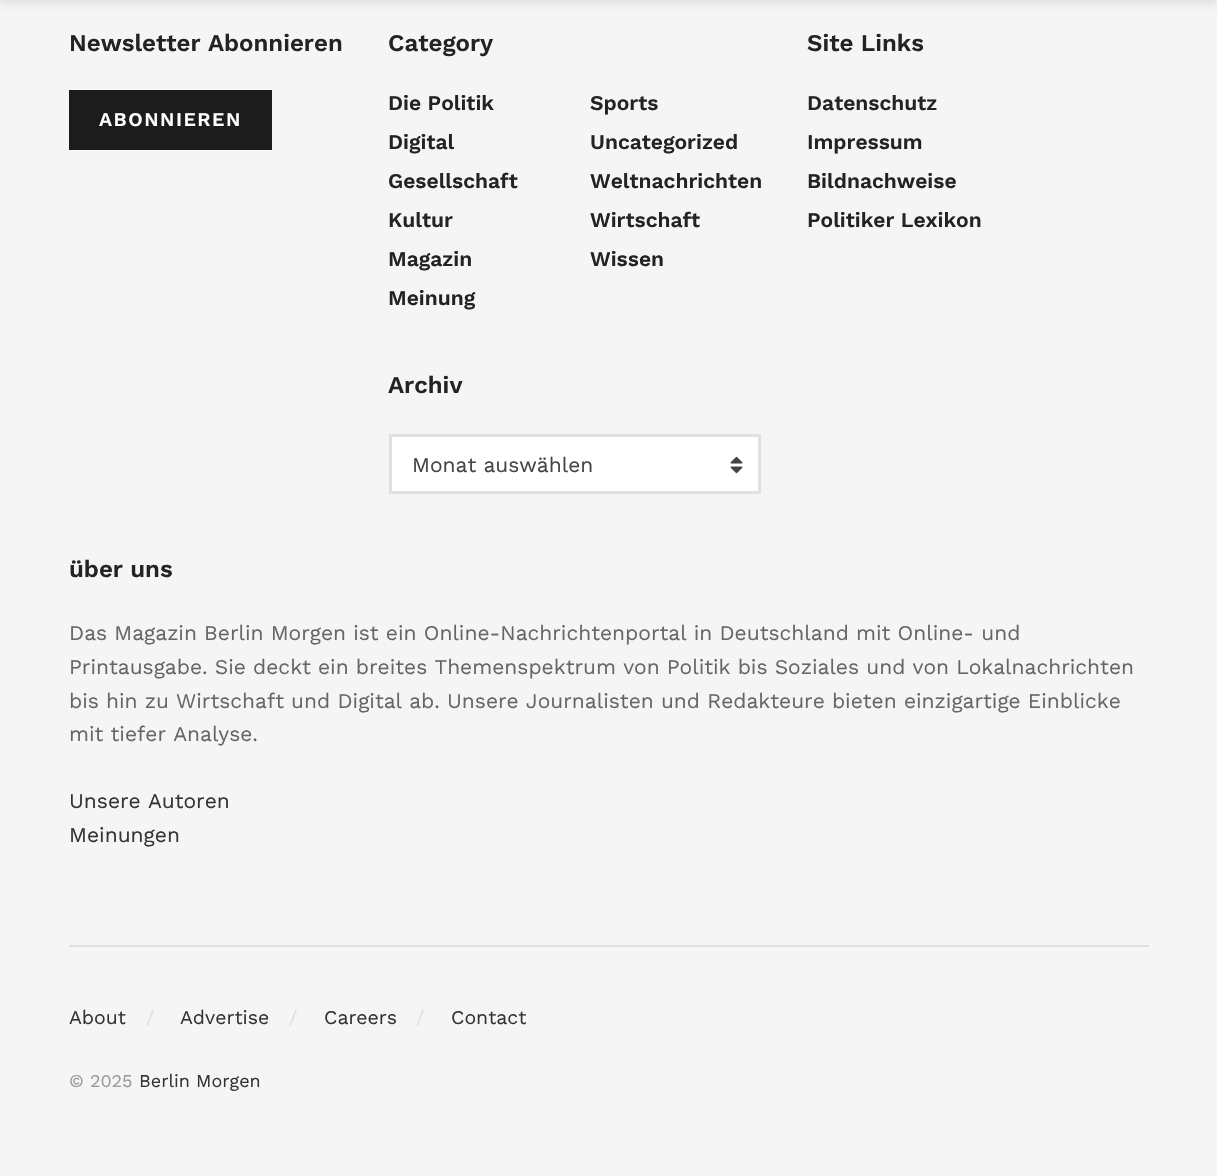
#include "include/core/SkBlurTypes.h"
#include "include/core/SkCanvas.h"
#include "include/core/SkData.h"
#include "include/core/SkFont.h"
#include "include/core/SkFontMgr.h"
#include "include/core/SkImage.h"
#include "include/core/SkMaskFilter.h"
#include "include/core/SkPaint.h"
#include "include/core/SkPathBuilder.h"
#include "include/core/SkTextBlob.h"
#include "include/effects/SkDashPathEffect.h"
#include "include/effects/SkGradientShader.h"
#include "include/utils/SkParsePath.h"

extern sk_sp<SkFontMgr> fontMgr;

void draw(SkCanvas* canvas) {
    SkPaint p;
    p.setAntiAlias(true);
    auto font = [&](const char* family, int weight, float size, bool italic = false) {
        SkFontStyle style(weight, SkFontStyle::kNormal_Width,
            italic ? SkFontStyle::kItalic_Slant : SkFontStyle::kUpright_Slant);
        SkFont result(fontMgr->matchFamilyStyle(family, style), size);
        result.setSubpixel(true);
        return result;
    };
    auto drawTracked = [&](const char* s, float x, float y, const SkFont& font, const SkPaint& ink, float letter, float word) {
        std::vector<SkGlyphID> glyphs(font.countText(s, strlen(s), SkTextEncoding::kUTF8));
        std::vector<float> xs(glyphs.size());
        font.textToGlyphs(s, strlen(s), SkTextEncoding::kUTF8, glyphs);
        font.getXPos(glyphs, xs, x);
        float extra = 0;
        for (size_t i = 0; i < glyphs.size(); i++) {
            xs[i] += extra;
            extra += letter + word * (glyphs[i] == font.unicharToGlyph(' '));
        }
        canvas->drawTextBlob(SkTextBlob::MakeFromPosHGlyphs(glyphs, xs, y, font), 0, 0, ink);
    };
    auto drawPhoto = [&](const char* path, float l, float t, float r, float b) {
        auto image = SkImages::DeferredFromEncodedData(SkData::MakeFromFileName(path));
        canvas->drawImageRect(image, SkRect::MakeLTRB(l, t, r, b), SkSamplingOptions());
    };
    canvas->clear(0xFFF5F5F5);
    p.setColor(0x1A000000);
    p.setMaskFilter(SkMaskFilter::MakeBlur(kNormal_SkBlurStyle, 4.5f));
    canvas->drawRect(SkRect::MakeLTRB(0, -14, 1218, 3), p);
    p.setMaskFilter(nullptr);
    auto font1 = font("Work Sans", 600, 24);
    p.setColor(0xFF232323);
    canvas->drawString("Newsletter Abonnieren", 69, 51, font1, p);
    p.setColor(0xFF1C1C1C);
    canvas->drawRect(SkRect::MakeLTRB(69, 90, 272, 150), p);
    auto font2 = font("Work Sans", 600, 19.5f);
    p.setColor(0xFFFFFFFF);
    drawTracked("ABONNIEREN", 99, 126, font2, p, 1.5f, 0);
    p.setColor(0xFF232323);
    canvas->drawString("Category", 388, 51, font1, p);
    auto font3 = font("Work Sans", 600, 21);
    {
        const struct { const char* s; float x, y; } items[] = {
            {"Die Politik", 388, 110},
            {"Sports", 590, 110},
            {"Digital", 388, 149},
            {"Uncategorized", 590, 149},
            {"Gesellschaft", 388, 188},
            {"Weltnachrichten", 590, 188},
            {"Kultur", 388, 227},
            {"Wirtschaft", 590, 227},
            {"Magazin", 388, 266},
            {"Wissen", 590, 266},
            {"Meinung", 388, 305},
        };
        for (auto [s, x, y] : items) {
            canvas->drawString(s, x, y, font3, p);
        }
    }
    canvas->drawString("Archiv", 388, 393, font1, p);
    p.setColor(0xFFFFFFFF);
    canvas->drawRect(SkRect::MakeLTRB(390.5f, 435.5f, 759.5f, 492.5f), p);
    p.setStyle(SkPaint::kStroke_Style);
    p.setStrokeWidth(3);
    p.setColor(0xFFE0E0E0);
    canvas->drawRect(SkRect::MakeLTRB(390.5f, 435.5f, 759.5f, 492.5f), p);
    auto font4 = font("Work Sans", 400, 21);
    p.setStyle(SkPaint::kFill_Style);
    p.setColor(0xFF444444);
    canvas->drawString("Monat auswählen", 412, 472, font4, p);
    drawPhoto("media/1.png", 730, 456, 743, 474);
    p.setColor(0xFF232323);
    canvas->drawString("Site Links", 807, 51, font1, p);
    {
        const struct { const char* s; float x, y; } items[] = {
            {"Datenschutz", 807, 110},
            {"Impressum", 807, 149},
            {"Bildnachweise", 807, 188},
            {"Politiker Lexikon", 807, 227},
        };
        for (auto [s, x, y] : items) {
            canvas->drawString(s, x, y, font3, p);
        }
    }
    canvas->drawString("über uns", 69, 577, font1, p);
    p.setColor(0xFF666666);
    {
        const struct { const char* s; float x, y; } items[] = {
            {"Das Magazin Berlin Morgen ist ein Online-Nachrichtenportal in Deutschland mit Online- und", 69, 640},
            {"Printausgabe. Sie deckt ein breites Themenspektrum von Politik bis Soziales und von Lokalnachrichten", 69, 674},
            {"bis hin zu Wirtschaft und Digital ab. Unsere Journalisten und Redakteure bieten einzigartige Einblicke", 69, 708},
            {"mit tiefer Analyse.", 69, 741},
        };
        for (auto [s, x, y] : items) {
            canvas->drawString(s, x, y, font4, p);
        }
    }
    p.setColor(0xFF333333);
    canvas->drawString("Unsere Autoren", 69, 808, font4, p);
    canvas->drawString("Meinungen", 69, 842, font4, p);
    p.setColor(0xFFE0E0E0);
    canvas->drawRect(SkRect::MakeLTRB(69, 945, 1149, 947), p);
    auto font5 = font("Work Sans", 400, 19.5f);
    p.setColor(0xFF333333);
    canvas->drawString("About", 69, 1024, font5, p);
    p.setColor(0xFFE0E0E0);
    canvas->drawString("/", 146, 1024, font5, p);
    p.setColor(0xFF333333);
    canvas->drawString("Advertise", 180, 1024, font5, p);
    p.setColor(0xFFE0E0E0);
    canvas->drawString("/", 289, 1024, font5, p);
    p.setColor(0xFF333333);
    canvas->drawString("Careers", 324, 1024, font5, p);
    p.setColor(0xFFE0E0E0);
    canvas->drawString("/", 416, 1024, font5, p);
    p.setColor(0xFF333333);
    canvas->drawString("Contact", 451, 1024, font5, p);
    auto font6 = font("Work Sans", 400, 18);
    p.setColor(0xFF999999);
    canvas->drawString("© 2025", 69, 1087, font6, p);
    p.setColor(0xFF333333);
    canvas->drawString("Berlin Morgen", 139, 1087, font6, p);
}
